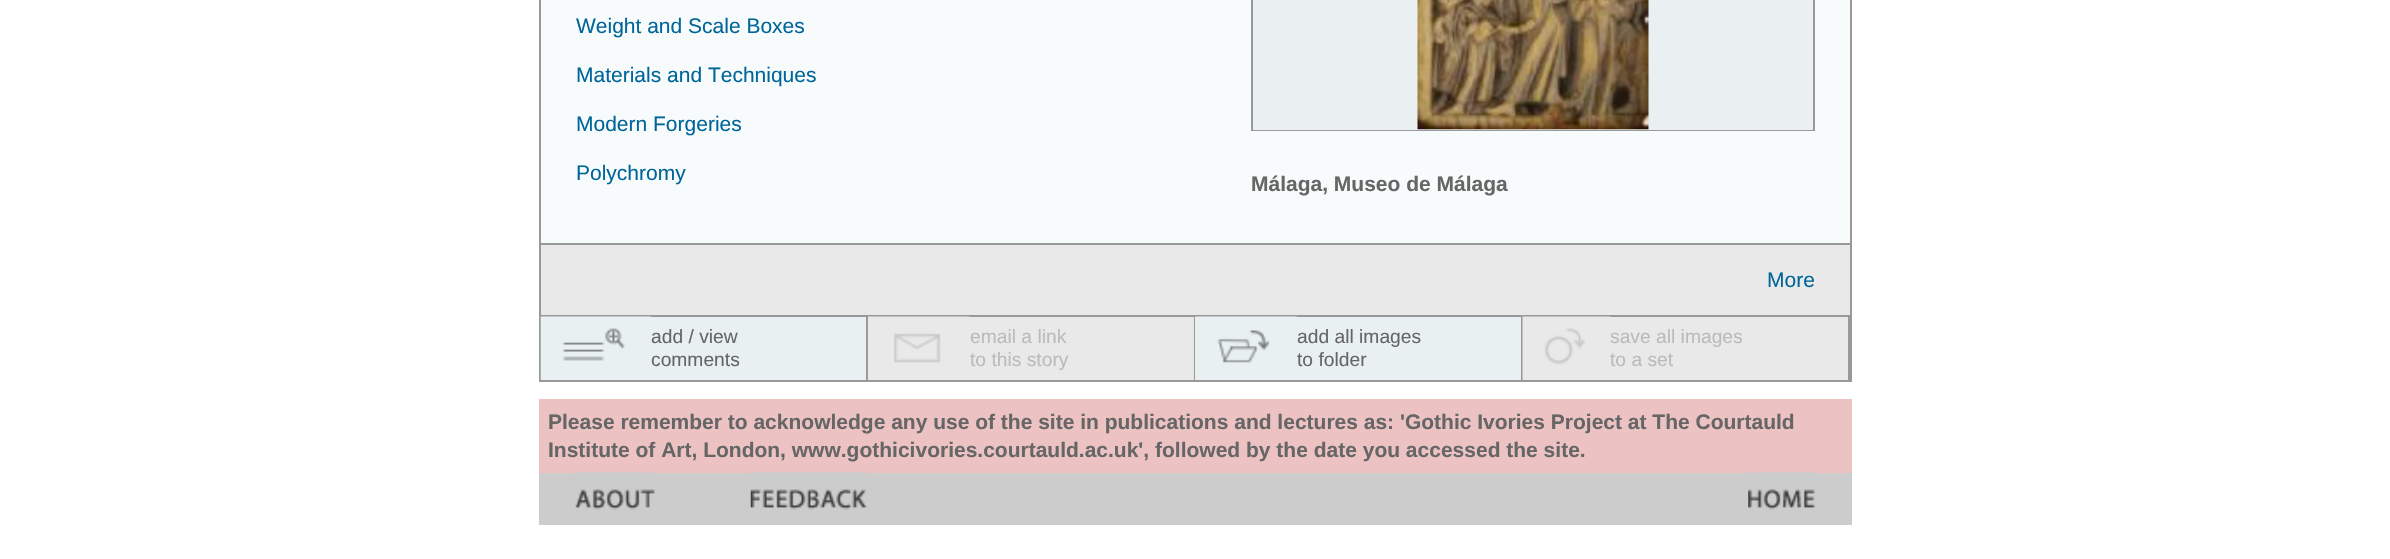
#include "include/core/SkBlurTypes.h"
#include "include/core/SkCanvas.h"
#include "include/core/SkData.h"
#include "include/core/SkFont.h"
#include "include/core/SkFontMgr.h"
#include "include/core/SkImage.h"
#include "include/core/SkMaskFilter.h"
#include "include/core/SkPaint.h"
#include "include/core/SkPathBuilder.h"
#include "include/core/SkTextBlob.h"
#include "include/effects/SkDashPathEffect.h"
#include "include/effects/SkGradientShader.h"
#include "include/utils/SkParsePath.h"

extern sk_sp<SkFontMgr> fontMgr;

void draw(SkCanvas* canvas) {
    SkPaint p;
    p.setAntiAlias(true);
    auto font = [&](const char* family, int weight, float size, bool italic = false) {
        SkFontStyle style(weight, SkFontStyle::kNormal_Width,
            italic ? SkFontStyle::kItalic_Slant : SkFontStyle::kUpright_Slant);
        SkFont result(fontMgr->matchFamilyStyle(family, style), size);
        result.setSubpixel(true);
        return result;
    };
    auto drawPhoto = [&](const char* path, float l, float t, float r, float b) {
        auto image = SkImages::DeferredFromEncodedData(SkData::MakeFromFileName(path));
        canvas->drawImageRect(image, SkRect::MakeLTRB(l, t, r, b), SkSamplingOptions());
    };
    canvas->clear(0xFFFFFFFF);
    p.setColor(0xFF999999);
    canvas->drawRect(SkRect::MakeLTRB(539, 0, 1852, 382), p);
    p.setColor(0xFFF8FBFC);
    canvas->drawRect(SkRect::MakeLTRB(541, 0, 1850, 243), p);
    auto font1 = font("Liberation Sans", 400, 21);
    p.setColor(0xFF006699);
    {
        const struct { const char* s; float x, y; } items[] = {
            {"Weight and Scale Boxes", 576, 33},
            {"Materials and Techniques", 576, 82},
            {"Modern Forgeries", 576, 131},
            {"Polychromy", 576, 180},
        };
        for (auto [s, x, y] : items) {
            canvas->drawString(s, x, y, font1, p);
        }
    }
    p.setColor(0xFF999999);
    canvas->drawRect(SkRect::MakeLTRB(1251, 0, 1815, 131), p);
    p.setColor(0xFFEAEFF2);
    canvas->drawRect(SkRect::MakeLTRB(1253, 0, 1813, 130), p);
    drawPhoto("media/1.png", 1417, 0, 1649, 130);
    auto font2 = font("Liberation Sans", 700, 21);
    p.setColor(0xFF666666);
    canvas->drawString("Málaga, Museo de Málaga", 1251, 191, font2, p);
    p.setColor(0xFFE9E9E9);
    canvas->drawRect(SkRect::MakeLTRB(541, 245, 1850, 315), p);
    p.setColor(0xFF006699);
    canvas->drawString("More", 1767, 287, font1, p);
    p.setColor(0xFFE8F0F2);
    canvas->drawRect(SkRect::MakeLTRB(541, 317, 866, 380), p);
    drawPhoto("media/2.png", 540, 316, 651, 380);
    auto font3 = font("Liberation Sans", 400, 19.25f);
    p.setColor(0xFF666666);
    canvas->drawString("add / view", 651, 343, font3, p);
    canvas->drawString("comments", 651, 366, font3, p);
    p.setColor(0xFFE9E9E9);
    canvas->drawRect(SkRect::MakeLTRB(868, 317, 1194, 380), p);
    drawPhoto("media/3.png", 868, 316, 970, 363);
    p.setColor(0xFFBBBBBB);
    canvas->drawString("email a link", 970, 343, font3, p);
    canvas->drawString("to this story", 970, 366, font3, p);
    p.setColor(0xFFE8F0F2);
    canvas->drawRect(SkRect::MakeLTRB(1195, 317, 1521, 380), p);
    drawPhoto("media/4.png", 1195, 316, 1297, 363);
    p.setColor(0xFF666666);
    canvas->drawString("add all images", 1297, 343, font3, p);
    canvas->drawString("to folder", 1297, 366, font3, p);
    p.setColor(0xFFE9E9E9);
    canvas->drawRect(SkRect::MakeLTRB(1523, 317, 1848, 380), p);
    drawPhoto("media/5.png", 1522, 316, 1610, 380);
    p.setColor(0xFFBBBBBB);
    canvas->drawString("save all images", 1610, 343, font3, p);
    canvas->drawString("to a set", 1610, 366, font3, p);
    p.setColor(0xFFECC2C2);
    canvas->drawRect(SkRect::MakeLTRB(539, 399, 1852, 473), p);
    p.setColor(0xFF666666);
    canvas->drawString("Please remember to acknowledge any use of the site in publications and lectures as: 'Gothic Ivories Project at The Courtauld", 548, 429, font2, p);
    canvas->drawString("Institute of Art, London, www.gothicivories.courtauld.ac.uk', followed by the date you accessed the site.", 548, 457, font2, p);
    p.setColor(0xFFCCCCCC);
    canvas->drawRect(SkRect::MakeLTRB(539, 473, 1852, 525), p);
    drawPhoto("media/6.png", 575, 472, 655, 510);
    drawPhoto("media/7.png", 750, 472, 867, 510);
    drawPhoto("media/8.png", 1748, 472, 1815, 510);
}
